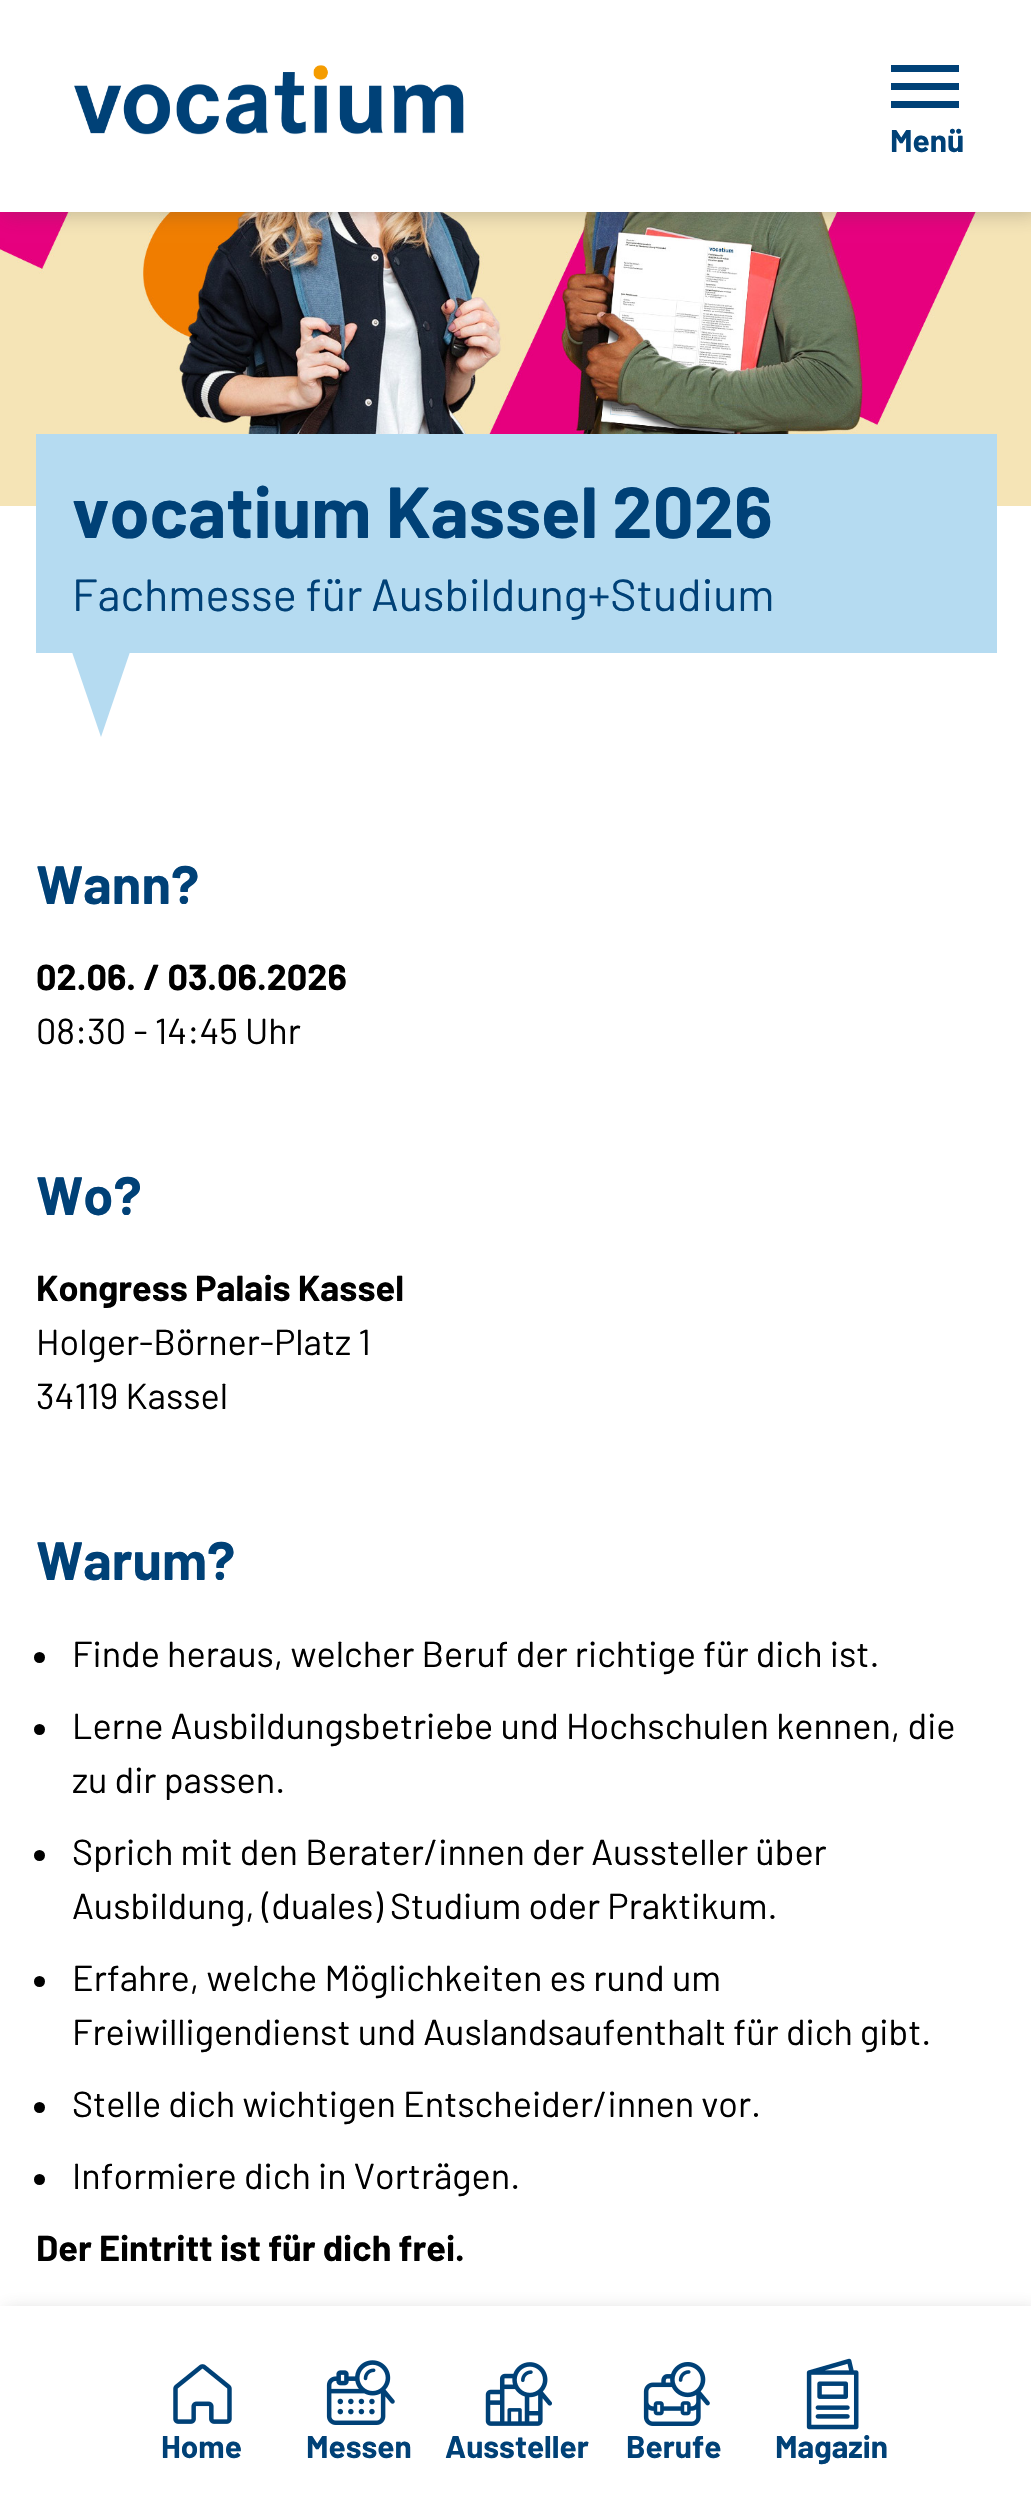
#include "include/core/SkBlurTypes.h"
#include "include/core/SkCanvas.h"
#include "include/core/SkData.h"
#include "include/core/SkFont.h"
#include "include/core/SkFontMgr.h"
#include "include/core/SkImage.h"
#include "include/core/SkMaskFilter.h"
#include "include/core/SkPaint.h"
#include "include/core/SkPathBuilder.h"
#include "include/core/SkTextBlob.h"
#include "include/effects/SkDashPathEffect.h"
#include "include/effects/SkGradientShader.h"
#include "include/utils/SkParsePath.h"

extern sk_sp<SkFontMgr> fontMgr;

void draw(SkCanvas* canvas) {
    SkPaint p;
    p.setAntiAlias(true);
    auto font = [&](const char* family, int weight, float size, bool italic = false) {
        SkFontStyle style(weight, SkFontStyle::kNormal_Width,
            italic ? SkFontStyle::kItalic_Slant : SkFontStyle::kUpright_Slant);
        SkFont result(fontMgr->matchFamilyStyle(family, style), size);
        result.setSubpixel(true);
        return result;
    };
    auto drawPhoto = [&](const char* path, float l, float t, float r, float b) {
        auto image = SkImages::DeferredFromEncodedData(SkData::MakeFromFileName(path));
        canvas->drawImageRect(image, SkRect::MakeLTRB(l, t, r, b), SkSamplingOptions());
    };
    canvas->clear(0xFFFFFFFF);
    drawPhoto("media/2.png", 0, 212, 1031, 506);
    p.setColor(0x40444444);
    p.setMaskFilter(SkMaskFilter::MakeBlur(kNormal_SkBlurStyle, 9));
    canvas->drawRect(SkRect::MakeLTRB(5, 5, 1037, 216), p);
    p.setMaskFilter(nullptr);
    p.setColor(0xFFFFFFFF);
    canvas->drawRect(SkRect::MakeLTRB(0, 0, 1031, 212), p);
    drawPhoto("media/1.png", 74, 65, 464, 135);
    {
        const struct { float l, t, r, b; SkColor color; } items[] = {
            {891, 65, 959, 72, 0xFF004177},
            {891, 83, 959, 90, 0xFF004177},
            {891, 101, 959, 108, 0xFF004177},
        };
        for (auto [l, t, r, b, color] : items) {
            p.setColor(color);
            canvas->drawRect(SkRect::MakeLTRB(l, t, r, b), p);
        }
    }
    auto font1 = font("Barlow", 700, 31.5f);
    canvas->drawString("Menü", 890, 152, font1, p);
    p.setColor(0xFFB5DBF1);
    canvas->drawRect(SkRect::MakeLTRB(36, 434, 997, 653), p);
    auto font2 = font("Barlow", 700, 72);
    p.setColor(0xFF004177);
    canvas->drawString("vocatium Kassel 2026", 72, 538, font2, p);
    auto font3 = font("Barlow", 400, 45);
    canvas->drawString("Fachmesse für Ausbildung+Studium", 72, 611, font3, p);
    canvas->save();
    canvas->clipRect(SkRect::MakeLTRB(72, 653, 131, 738));
    p.setColor(0xFFB5DBF1);
    canvas->drawPath(SkPathBuilder().moveTo(101, 737).lineTo(72, 652).lineTo(130, 652).close().detach(), p);
    canvas->restore();
    auto font4 = font("Barlow", 700, 54);
    p.setColor(0xFF004177);
    canvas->drawString("Wann?", 36, 904, font4, p);
    auto font5 = font("Barlow", 700, 36);
    p.setColor(0xFF000000);
    canvas->drawString("02.06. / 03.06.2026", 36, 990, font5, p);
    auto font6 = font("Barlow", 400, 36);
    canvas->drawString("08:30 - 14:45 Uhr", 36, 1044, font6, p);
    p.setColor(0xFF004177);
    canvas->drawString("Wo?", 36, 1215, font4, p);
    p.setColor(0xFF000000);
    canvas->drawString("Kongress Palais Kassel", 36, 1301, font5, p);
    canvas->drawString("Holger-Börner-Platz 1", 36, 1355, font6, p);
    canvas->drawString("34119 Kassel", 36, 1409, font6, p);
    p.setColor(0xFF004177);
    canvas->drawString("Warum?", 36, 1580, font4, p);
    p.setColor(0xFF000000);
    canvas->drawCircle(39.5f, 1657.5f, 5.5f, p);
    canvas->drawString("Finde heraus, welcher Beruf der richtige für dich ist.", 72, 1667, font6, p);
    canvas->drawCircle(39.5f, 1729.5f, 5.5f, p);
    canvas->drawString("Lerne Ausbildungsbetriebe und Hochschulen kennen, die", 72, 1739, font6, p);
    canvas->drawString("zu dir passen.", 72, 1793, font6, p);
    canvas->drawCircle(39.5f, 1855.5f, 5.5f, p);
    canvas->drawString("Sprich mit den Berater/innen der Aussteller über", 72, 1865, font6, p);
    canvas->drawString("Ausbildung, (duales) Studium oder Praktikum.", 72, 1919, font6, p);
    canvas->drawCircle(39.5f, 1981.5f, 5.5f, p);
    canvas->drawString("Erfahre, welche Möglichkeiten es rund um", 72, 1991, font6, p);
    canvas->drawString("Freiwilligendienst und Auslandsaufenthalt für dich gibt.", 72, 2045, font6, p);
    canvas->drawCircle(39.5f, 2107.5f, 5.5f, p);
    canvas->drawString("Stelle dich wichtigen Entscheider/innen vor.", 72, 2117, font6, p);
    canvas->drawCircle(39.5f, 2179.5f, 5.5f, p);
    canvas->drawString("Informiere dich in Vorträgen.", 72, 2189, font6, p);
    canvas->drawString("Der Eintritt ist für dich frei.", 36, 2261, font5, p);
    p.setColor(0x40444444);
    p.setMaskFilter(SkMaskFilter::MakeBlur(kNormal_SkBlurStyle, 9));
    canvas->drawRect(SkRect::MakeLTRB(5, 2311, 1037, 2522), p);
    p.setMaskFilter(nullptr);
    p.setColor(0xFFFFFFFF);
    canvas->drawRect(SkRect::MakeLTRB(0, 2306, 1031, 2517), p);
    drawPhoto("media/3.png", 173, 2364, 232, 2424);
    p.setColor(0xFF004177);
    canvas->drawString("Home", 161, 2458, font1, p);
    drawPhoto("media/4.png", 326, 2360, 395, 2425);
    canvas->drawString("Messen", 306, 2458, font1, p);
    drawPhoto("media/5.png", 485, 2362, 552, 2426);
    canvas->drawString("Aussteller", 445, 2458, font1, p);
    drawPhoto("media/6.png", 643, 2362, 710, 2426);
    canvas->drawString("Berufe", 626, 2458, font1, p);
    drawPhoto("media/7.png", 806, 2358, 859, 2430);
    canvas->drawString("Magazin", 775, 2458, font1, p);
}
